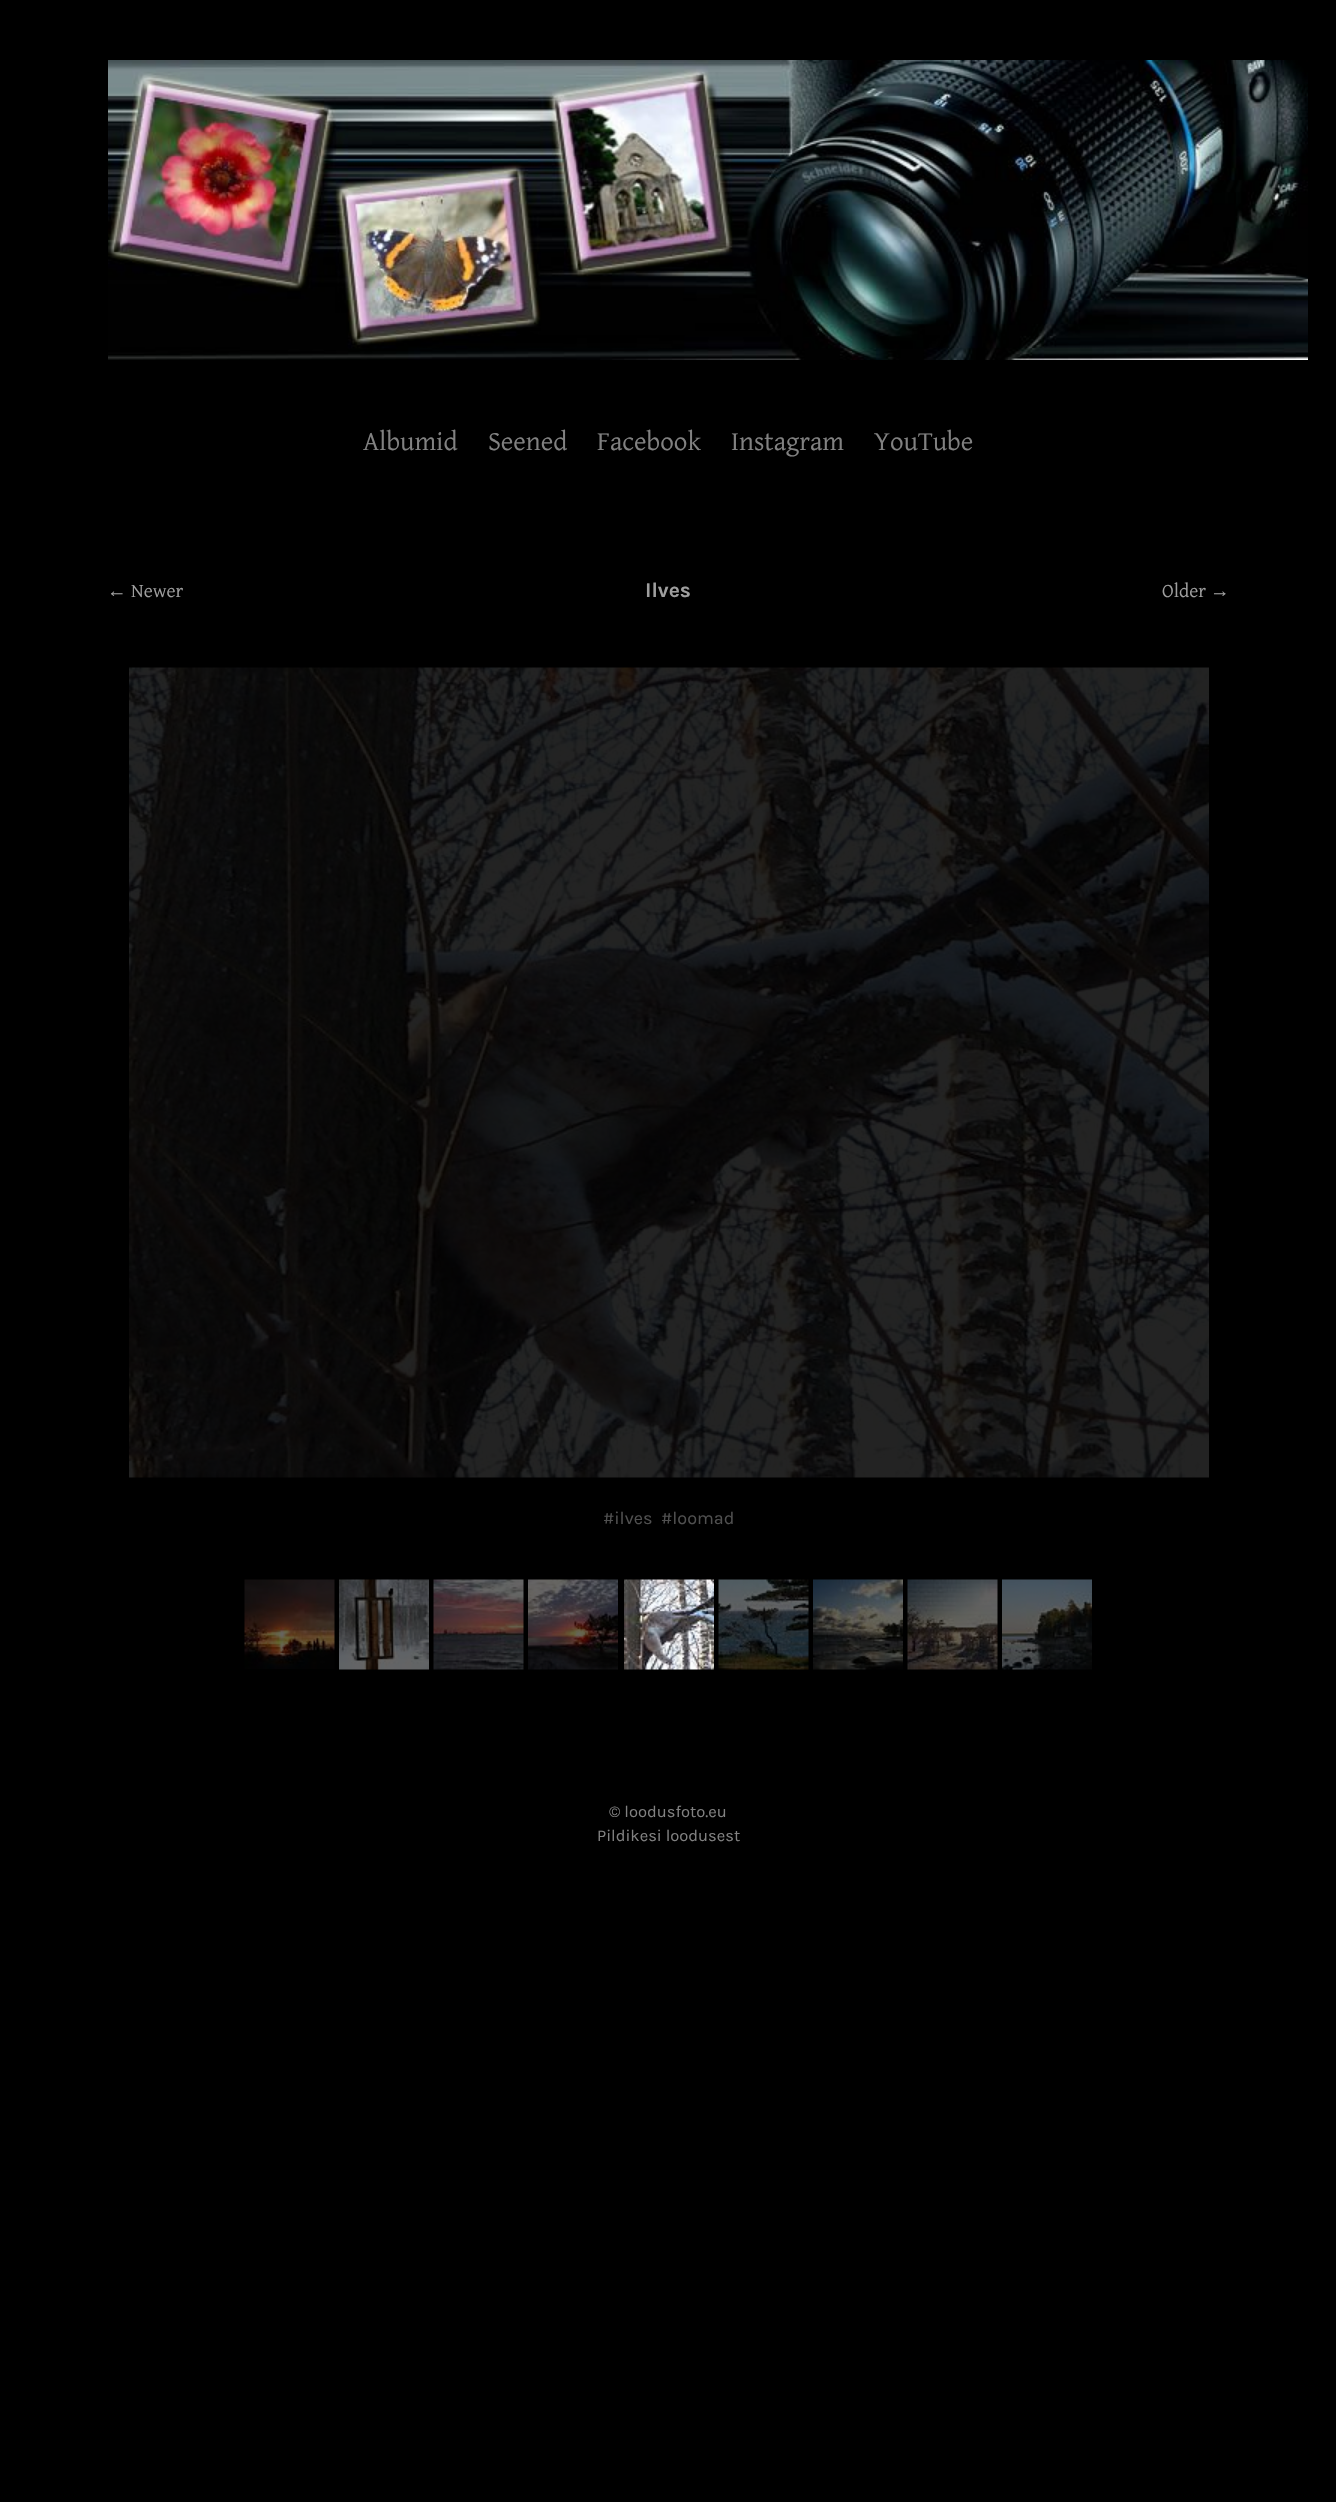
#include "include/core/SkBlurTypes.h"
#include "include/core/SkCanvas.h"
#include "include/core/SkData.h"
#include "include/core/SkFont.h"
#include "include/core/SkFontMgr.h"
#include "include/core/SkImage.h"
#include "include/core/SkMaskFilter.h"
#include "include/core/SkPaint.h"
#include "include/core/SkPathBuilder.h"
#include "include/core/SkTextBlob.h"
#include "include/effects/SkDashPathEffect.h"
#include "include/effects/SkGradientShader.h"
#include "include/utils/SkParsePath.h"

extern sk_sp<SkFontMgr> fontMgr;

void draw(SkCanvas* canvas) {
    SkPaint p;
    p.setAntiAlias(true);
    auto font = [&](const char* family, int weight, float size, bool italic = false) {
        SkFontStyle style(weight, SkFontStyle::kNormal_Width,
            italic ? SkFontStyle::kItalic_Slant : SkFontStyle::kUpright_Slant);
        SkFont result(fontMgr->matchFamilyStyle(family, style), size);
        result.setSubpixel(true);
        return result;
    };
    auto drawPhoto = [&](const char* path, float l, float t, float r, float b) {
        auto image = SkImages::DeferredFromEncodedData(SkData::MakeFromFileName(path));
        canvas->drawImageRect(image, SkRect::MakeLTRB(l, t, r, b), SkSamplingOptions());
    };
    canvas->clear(0xFF000000);
    drawPhoto("media/1.png", 108, 60, 1308, 360);
    auto font1 = font("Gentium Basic", 400, 27);
    p.setColor(0xFF818181);
    {
        const struct { const char* s; float x, y; } items[] = {
            {"Albumid", 363, 450},
            {"Seened", 488, 450},
            {"Facebook", 597, 450},
            {"Instagram", 731, 450},
            {"YouTube", 874, 450},
        };
        for (auto [s, x, y] : items) {
            canvas->drawString(s, x, y, font1, p);
        }
    }
    auto font2 = font("Liberation Serif", 400, 19.5f);
    p.setColor(0xFF9E9E9E);
    canvas->drawString("←", 107, 597, font2, p);
    auto font3 = font("Gentium Basic", 400, 19.5f);
    canvas->drawString("Newer", 131, 597, font3, p);
    auto font4 = font("Karla", 700, 21);
    canvas->drawString("Ilves", 645, 597, font4, p);
    canvas->drawString("Older", 1162, 597, font3, p);
    canvas->drawString("→", 1210, 597, font2, p);
    drawPhoto("media/2.png", 129, 667, 1209, 1478);
    auto font5 = font("Karla", 400, 18);
    p.setColor(0xFF505050);
    canvas->drawString("#ilves", 603, 1524, font5, p);
    canvas->drawString("#loomad", 661, 1524, font5, p);
    drawPhoto("media/3.png", 244, 1579, 335, 1669);
    drawPhoto("media/4.png", 339, 1579, 429, 1670);
    drawPhoto("media/5.png", 433, 1579, 524, 1670);
    drawPhoto("media/6.png", 528, 1579, 618, 1670);
    drawPhoto("media/7.png", 624, 1579, 714, 1670);
    drawPhoto("media/8.png", 718, 1579, 809, 1670);
    drawPhoto("media/9.png", 813, 1579, 903, 1670);
    drawPhoto("media/10.png", 907, 1579, 998, 1670);
    drawPhoto("media/11.png", 1002, 1579, 1092, 1670);
    auto font6 = font("Karla", 400, 16.5f);
    p.setColor(0xFF818181);
    canvas->drawString("© loodusfoto.eu", 609, 1817, font6, p);
    canvas->drawString("Pildikesi loodusest", 597, 1841, font6, p);
}
